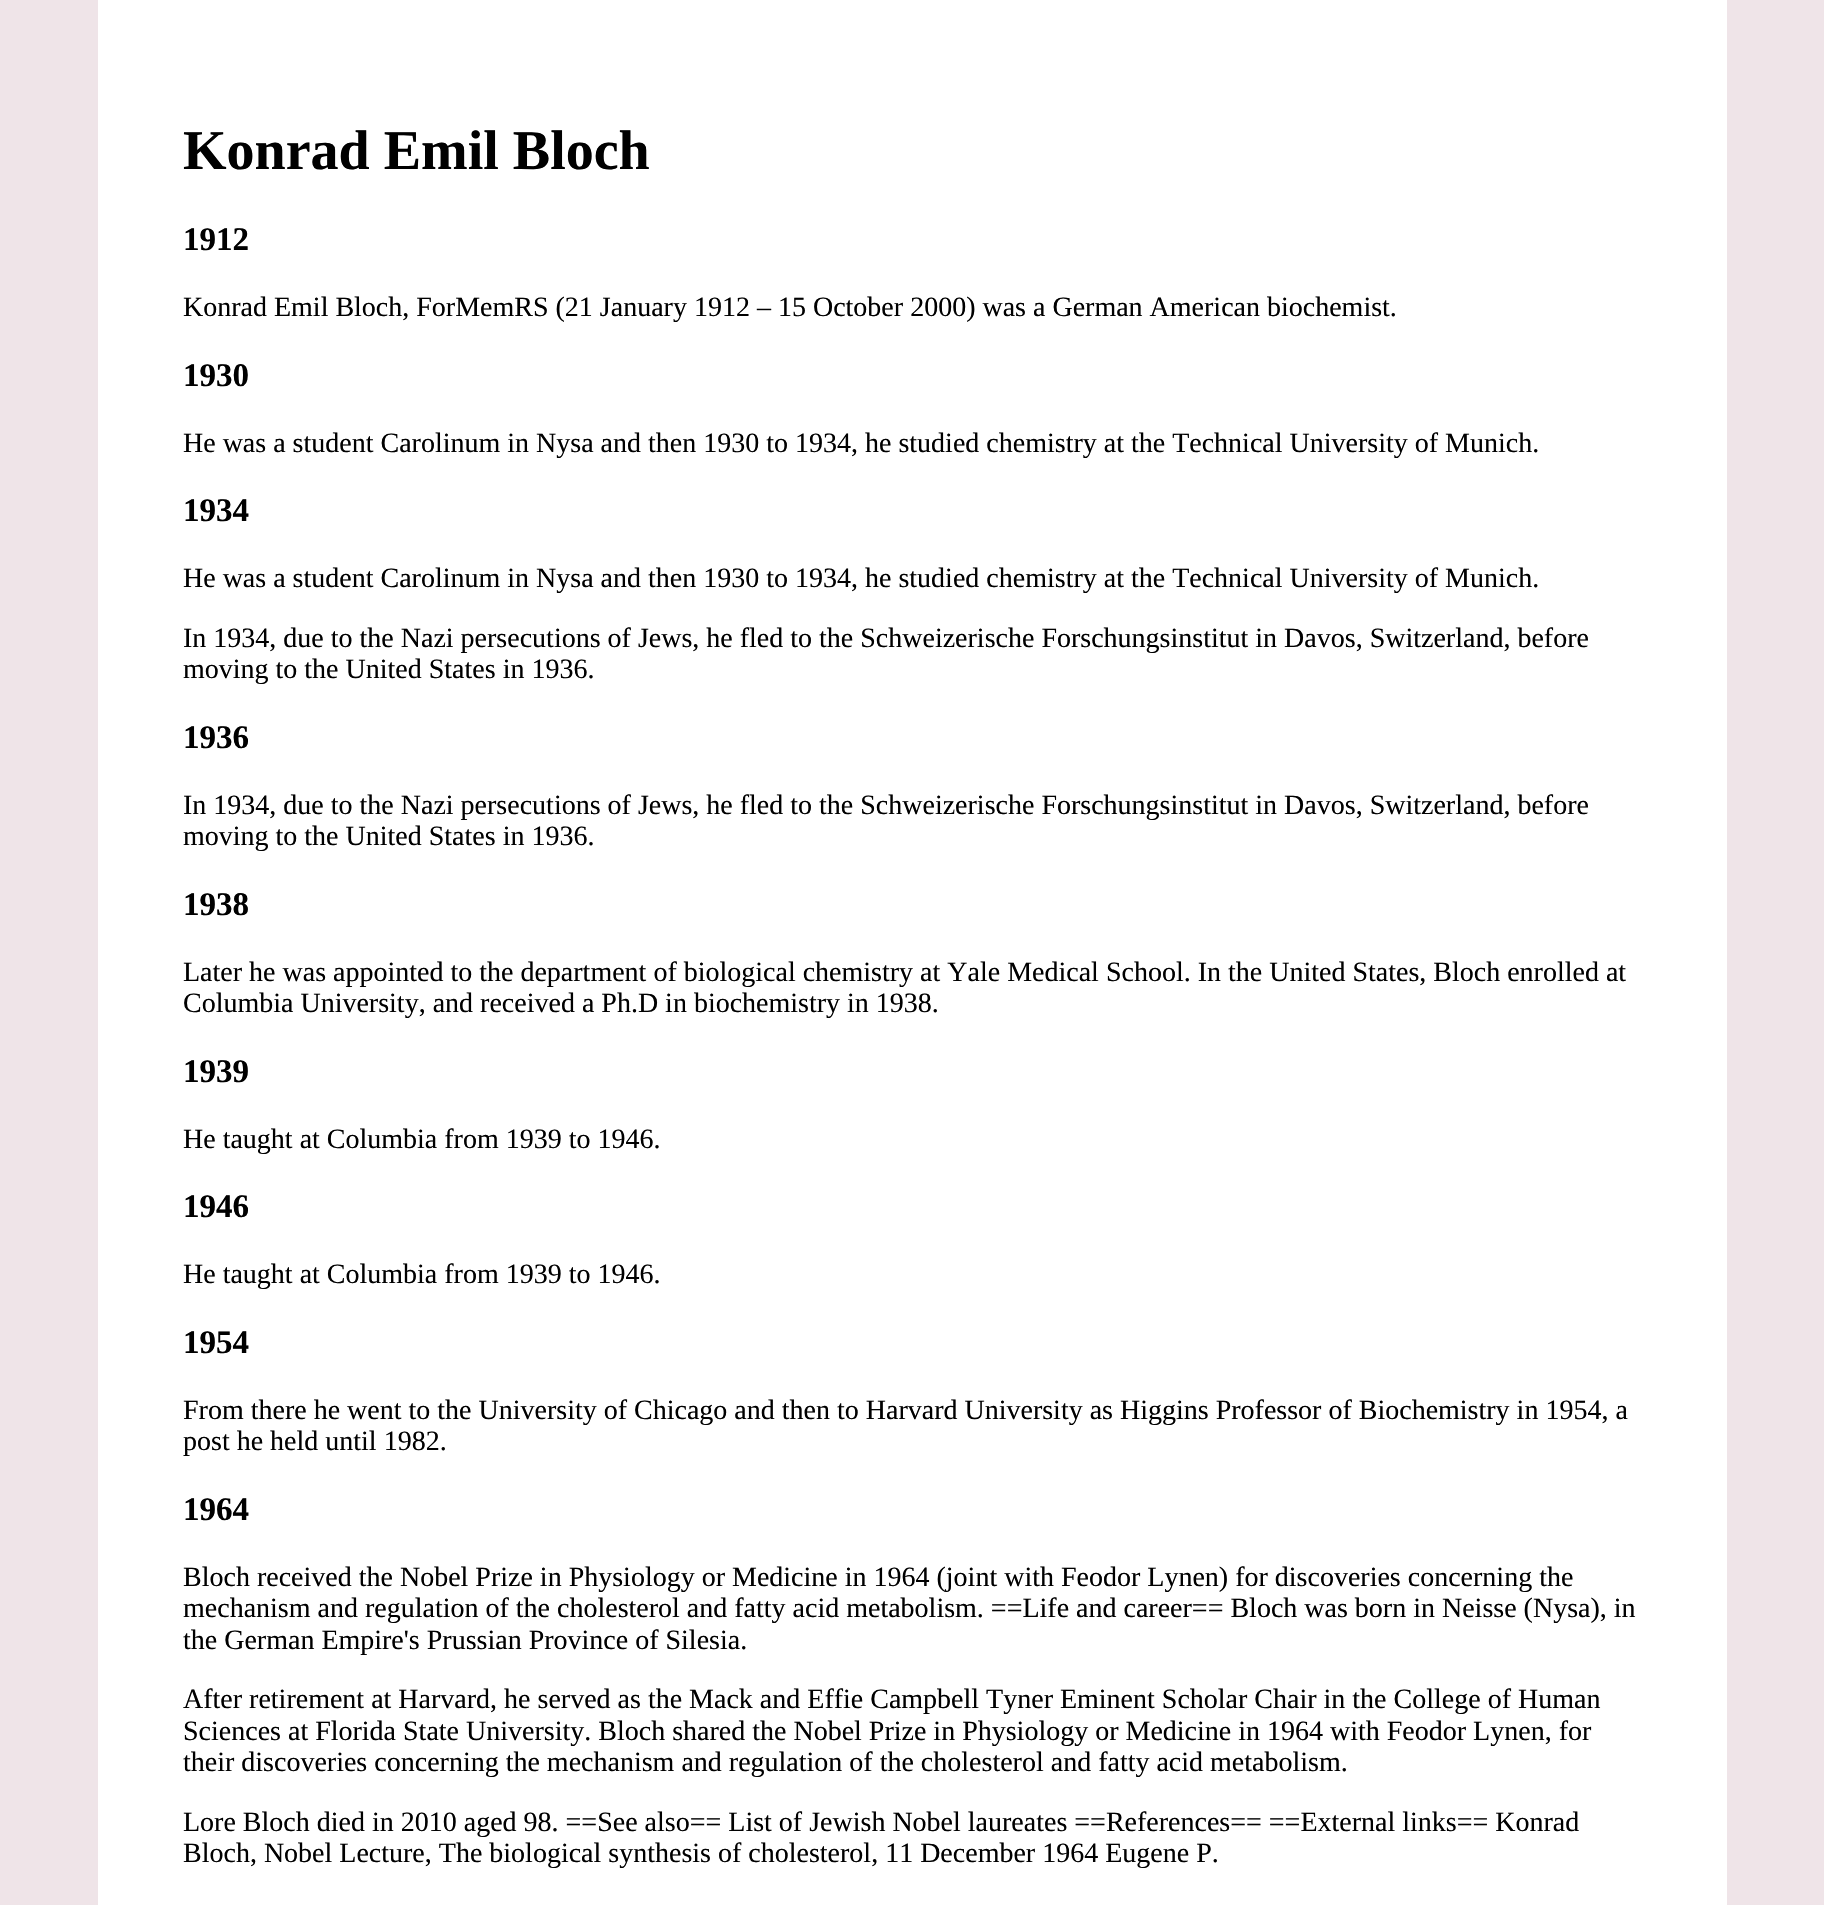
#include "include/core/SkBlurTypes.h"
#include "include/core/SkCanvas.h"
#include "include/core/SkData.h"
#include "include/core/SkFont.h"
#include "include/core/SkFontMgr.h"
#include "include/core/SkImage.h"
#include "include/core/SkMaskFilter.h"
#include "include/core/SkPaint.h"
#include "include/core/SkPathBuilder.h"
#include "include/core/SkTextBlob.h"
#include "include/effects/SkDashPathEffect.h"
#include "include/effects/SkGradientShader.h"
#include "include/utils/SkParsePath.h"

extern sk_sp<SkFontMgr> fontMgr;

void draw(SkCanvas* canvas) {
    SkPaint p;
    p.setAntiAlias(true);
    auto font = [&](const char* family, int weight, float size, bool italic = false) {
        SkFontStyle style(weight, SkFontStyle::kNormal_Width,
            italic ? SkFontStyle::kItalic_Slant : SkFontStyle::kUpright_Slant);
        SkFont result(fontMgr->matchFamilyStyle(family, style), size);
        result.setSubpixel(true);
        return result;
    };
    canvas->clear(0xFFEFE4E8);
    p.setColor(0xFFFFFFFF);
    canvas->drawRect(SkRect::MakeLTRB(98, 0, 1727, 1905), p);
    auto font1 = font("Liberation Serif", 700, 56);
    p.setColor(0xFF000000);
    canvas->drawString("Konrad Emil Bloch", 183, 169, font1, p);
    auto font2 = font("Liberation Serif", 700, 33);
    canvas->drawString("1912", 183, 250, font2, p);
    auto font3 = font("Liberation Serif", 400, 28);
    canvas->drawString("Konrad Emil Bloch, ForMemRS (21 January 1912 – 15 October 2000) was a German American biochemist.", 183, 316, font3, p);
    canvas->drawString("1930", 183, 386, font2, p);
    canvas->drawString("He was a student Carolinum in Nysa and then 1930 to 1934, he studied chemistry at the Technical University of Munich.", 183, 452, font3, p);
    canvas->drawString("1934", 183, 521, font2, p);
    {
        const struct { const char* s; float x, y; } items[] = {
            {"He was a student Carolinum in Nysa and then 1930 to 1934, he studied chemistry at the Technical University of Munich.", 183, 587},
            {"In 1934, due to the Nazi persecutions of Jews, he fled to the Schweizerische Forschungsinstitut in Davos, Switzerland, before", 183, 647},
            {"moving to the United States in 1936.", 183, 678},
        };
        for (auto [s, x, y] : items) {
            canvas->drawString(s, x, y, font3, p);
        }
    }
    canvas->drawString("1936", 183, 748, font2, p);
    canvas->drawString("In 1934, due to the Nazi persecutions of Jews, he fled to the Schweizerische Forschungsinstitut in Davos, Switzerland, before", 183, 814, font3, p);
    canvas->drawString("moving to the United States in 1936.", 183, 845, font3, p);
    canvas->drawString("1938", 183, 915, font2, p);
    canvas->drawString("Later he was appointed to the department of biological chemistry at Yale Medical School. In the United States, Bloch enrolled at", 183, 981, font3, p);
    canvas->drawString("Columbia University, and received a Ph.D in biochemistry in 1938.", 183, 1012, font3, p);
    canvas->drawString("1939", 183, 1082, font2, p);
    canvas->drawString("He taught at Columbia from 1939 to 1946.", 183, 1148, font3, p);
    canvas->drawString("1946", 183, 1217, font2, p);
    canvas->drawString("He taught at Columbia from 1939 to 1946.", 183, 1283, font3, p);
    canvas->drawString("1954", 183, 1353, font2, p);
    canvas->drawString("From there he went to the University of Chicago and then to Harvard University as Higgins Professor of Biochemistry in 1954, a", 183, 1419, font3, p);
    canvas->drawString("post he held until 1982.", 183, 1450, font3, p);
    canvas->drawString("1964", 183, 1520, font2, p);
    {
        const struct { const char* s; float x, y; } items[] = {
            {"Bloch received the Nobel Prize in Physiology or Medicine in 1964 (joint with Feodor Lynen) for discoveries concerning the", 183, 1586},
            {"mechanism and regulation of the cholesterol and fatty acid metabolism. ==Life and career== Bloch was born in Neisse (Nysa), in", 183, 1617},
            {"the German Empire's Prussian Province of Silesia.", 183, 1649},
            {"After retirement at Harvard, he served as the Mack and Effie Campbell Tyner Eminent Scholar Chair in the College of Human", 183, 1708},
            {"Sciences at Florida State University. Bloch shared the Nobel Prize in Physiology or Medicine in 1964 with Feodor Lynen, for", 183, 1740},
            {"their discoveries concerning the mechanism and regulation of the cholesterol and fatty acid metabolism.", 183, 1771},
            {"Lore Bloch died in 2010 aged 98. ==See also== List of Jewish Nobel laureates ==References== ==External links== Konrad", 183, 1831},
            {"Bloch, Nobel Lecture, The biological synthesis of cholesterol, 11 December 1964 Eugene P.", 183, 1862},
        };
        for (auto [s, x, y] : items) {
            canvas->drawString(s, x, y, font3, p);
        }
    }
}
